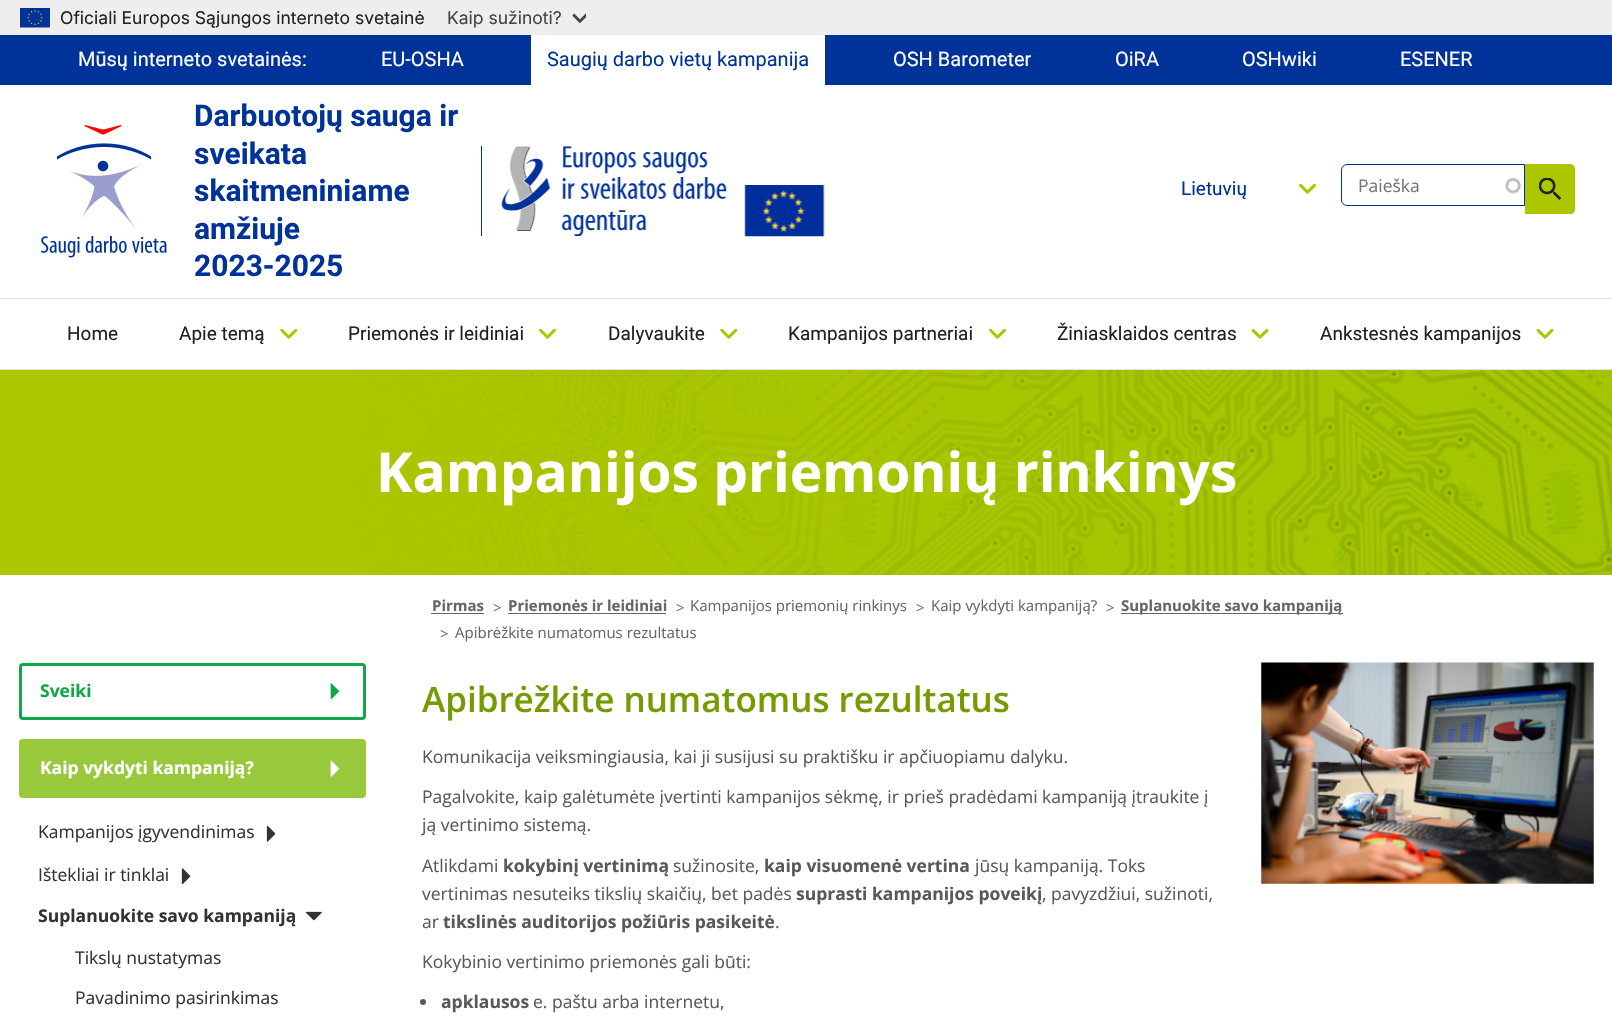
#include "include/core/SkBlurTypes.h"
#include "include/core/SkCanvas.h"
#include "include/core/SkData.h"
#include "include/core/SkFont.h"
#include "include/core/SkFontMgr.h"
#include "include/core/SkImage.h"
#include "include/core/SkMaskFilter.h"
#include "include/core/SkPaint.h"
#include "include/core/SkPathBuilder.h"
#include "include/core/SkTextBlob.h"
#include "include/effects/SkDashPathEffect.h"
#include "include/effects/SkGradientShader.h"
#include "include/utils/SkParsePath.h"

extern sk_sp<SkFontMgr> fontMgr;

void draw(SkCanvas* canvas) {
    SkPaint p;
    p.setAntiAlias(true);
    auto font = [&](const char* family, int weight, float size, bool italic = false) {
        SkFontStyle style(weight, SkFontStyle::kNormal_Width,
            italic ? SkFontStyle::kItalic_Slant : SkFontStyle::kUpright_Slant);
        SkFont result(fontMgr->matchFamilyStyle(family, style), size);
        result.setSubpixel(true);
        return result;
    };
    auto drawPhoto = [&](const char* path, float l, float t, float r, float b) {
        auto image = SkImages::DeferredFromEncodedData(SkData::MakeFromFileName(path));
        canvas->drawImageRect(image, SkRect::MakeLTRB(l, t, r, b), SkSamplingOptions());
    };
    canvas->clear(0xFFFFFFFF);
    p.setColor(0xFFEEEEEE);
    canvas->drawRect(SkRect::MakeLTRB(0, 0, 1612, 35), p);
    drawPhoto("media/1.png", 20, 8, 50, 28);
    auto font1 = font("Inter", 400, 17.5f);
    p.setColor(0xFF212529);
    canvas->drawString("Oficiali Europos Sąjungos interneto svetainė", 60, 24, font1, p);
    p.setColor(0xFF444444);
    canvas->drawString("Kaip sužinoti?", 447, 24, font1, p);
    drawPhoto("media/2.png", 572, 13, 586, 24);
    p.setColor(0xFF003399);
    canvas->drawRect(SkRect::MakeLTRB(0, 35, 1612, 85), p);
    auto font2 = font("Roboto", 400, 20);
    p.setColor(0xFFFFFFFF);
    canvas->drawString("Mūsų interneto svetainės:", 78, 66, font2, p);
    canvas->drawString("EU-OSHA", 381, 66, font2, p);
    canvas->drawRect(SkRect::MakeLTRB(531, 35, 825, 85), p);
    p.setColor(0xFF003399);
    canvas->drawString("Saugių darbo vietų kampanija", 547, 66, font2, p);
    p.setColor(0xFFFFFFFF);
    {
        const struct { const char* s; float x, y; } items[] = {
            {"OSH Barometer", 893, 66},
            {"OiRA", 1115, 66},
            {"OSHwiki", 1242, 66},
            {"ESENER", 1400, 66},
        };
        for (auto [s, x, y] : items) {
            canvas->drawString(s, x, y, font2, p);
        }
    }
    drawPhoto("media/3.png", 41, 125, 167, 258);
    auto font3 = font("Roboto", 700, 30);
    p.setColor(0xFF003399);
    {
        const struct { const char* s; float x, y; } items[] = {
            {"Darbuotojų sauga ir", 194, 126},
            {"sveikata", 194, 164},
            {"skaitmeniniame", 194, 201},
            {"amžiuje", 194, 239},
            {"2023-2025", 194, 276},
        };
        for (auto [s, x, y] : items) {
            canvas->drawString(s, x, y, font3, p);
        }
    }
    canvas->drawRect(SkRect::MakeLTRB(481, 146, 482, 236), p);
    drawPhoto("media/4.png", 501, 146, 727, 236);
    drawPhoto("media/5.png", 744, 185, 825, 237);
    drawPhoto("media/6.png", 1299, 184, 1316, 194);
    auto font4 = font("Roboto", 400, 19);
    canvas->drawString("Lietuvių", 1181, 195, font4, p);
    drawPhoto("media/7.png", 1505, 177, 1522, 194);
    p.setStyle(SkPaint::kStroke_Style);
    p.setStrokeWidth(1);
    canvas->drawPath(SkPathBuilder().moveTo(1347, 164.5f).lineTo(1524.5f, 164.5f).lineTo(1524.5f, 205.5f).lineTo(1347, 205.5f).cubicTo(1344, 205.5f, 1341.5f, 203, 1341.5f, 200).lineTo(1341.5f, 170).cubicTo(1341.5f, 167, 1344, 164.5f, 1347, 164.5f).close().detach(), p);
    auto font5 = font("Open Sans", 400, 17.5f);
    p.setStyle(SkPaint::kFill_Style);
    p.setColor(0xFF757575);
    canvas->drawString("Paieška", 1358, 192, font5, p);
    p.setColor(0xFFACC700);
    canvas->drawPath(SkPathBuilder().moveTo(1525, 164).lineTo(1570, 164).cubicTo(1573, 164, 1575, 166, 1575, 169).lineTo(1575, 209).cubicTo(1575, 212, 1573, 214, 1570, 214).lineTo(1525, 214).close().detach(), p);
    drawPhoto("media/8.png", 1539, 178, 1561, 200);
    p.setColor(0xFFE0E0E0);
    canvas->drawRect(SkRect::MakeLTRB(0, 298, 1612, 299), p);
    canvas->drawRect(SkRect::MakeLTRB(0, 369, 1612, 370), p);
    p.setColor(0xFF212121);
    canvas->drawString("Home", 67, 340, font4, p);
    drawPhoto("media/9.png", 280, 329, 298, 339);
    canvas->drawString("Apie temą", 179, 340, font4, p);
    drawPhoto("media/6.png", 539, 329, 556, 339);
    canvas->drawString("Priemonės ir leidiniai", 348, 340, font4, p);
    drawPhoto("media/9.png", 720, 329, 738, 339);
    canvas->drawString("Dalyvaukite", 608, 340, font4, p);
    drawPhoto("media/6.png", 989, 329, 1006, 339);
    canvas->drawString("Kampanijos partneriai", 788, 340, font4, p);
    drawPhoto("media/10.png", 1251, 329, 1269, 339);
    canvas->drawString("Žiniasklaidos centras", 1057, 340, font4, p);
    drawPhoto("media/10.png", 1536, 329, 1554, 339);
    canvas->drawString("Ankstesnės kampanijos", 1320, 340, font4, p);
    drawPhoto("media/11.png", 0, 370, 1612, 575);
    auto font6 = font("Open Sans", 700, 55);
    p.setColor(0xFFFFFFFF);
    canvas->drawString("Kampanijos priemonių rinkinys", 376, 492, font6, p);
    auto font7 = font("Open Sans", 700, 15);
    p.setColor(0xFF666666);
    canvas->drawString("Pirmas", 432, 611, font7, p);
    canvas->drawRect(SkRect::MakeLTRB(431, 613, 484, 614), p);
    auto font8 = font("Open Sans", 400, 15);
    canvas->drawString(">", 493, 613, font8, p);
    canvas->drawString("Priemonės ir leidiniai", 508, 611, font7, p);
    canvas->drawRect(SkRect::MakeLTRB(508, 613, 666, 614), p);
    {
        const struct { const char* s; float x, y; } items[] = {
            {">", 676, 613},
            {"Kampanijos priemonių rinkinys", 690, 611},
            {">", 916, 613},
            {"Kaip vykdyti kampaniją?", 931, 611},
            {">", 1106, 613},
        };
        for (auto [s, x, y] : items) {
            canvas->drawString(s, x, y, font8, p);
        }
    }
    canvas->drawRect(SkRect::MakeLTRB(1121, 613, 1343, 614), p);
    canvas->drawString("Suplanuokite savo kampaniją", 1121, 611, font7, p);
    canvas->drawString(">", 440, 639, font8, p);
    canvas->drawString("Apibrėžkite numatomus rezultatus", 455, 638, font8, p);
    p.setStyle(SkPaint::kStroke_Style);
    p.setStrokeWidth(3);
    p.setColor(0xFF10A748);
    canvas->drawRoundRect(SkRect::MakeLTRB(20.5f, 664.5f, 364.5f, 718.5f), 2.5f, 2.5f, p);
    auto font9 = font("Open Sans", 700, 17.5f);
    p.setStyle(SkPaint::kFill_Style);
    canvas->drawString("Sveiki", 40, 697, font9, p);
    drawPhoto("media/12.png", 330, 683, 339, 700);
    p.setColor(0xFF98C93C);
    canvas->drawRoundRect(SkRect::MakeLTRB(20.5f, 740.5f, 364.5f, 796.5f), 2.5f, 2.5f, p);
    p.setStyle(SkPaint::kStroke_Style);
    canvas->drawRoundRect(SkRect::MakeLTRB(20.5f, 740.5f, 364.5f, 796.5f), 2.5f, 2.5f, p);
    p.setStyle(SkPaint::kFill_Style);
    p.setColor(0xFFFFFFFF);
    canvas->drawString("Kaip vykdyti kampaniją?", 40, 774, font9, p);
    drawPhoto("media/13.png", 330, 760, 339, 777);
    p.setColor(0xFF333333);
    canvas->drawString("Kampanijos įgyvendinimas", 38, 838, font5, p);
    drawPhoto("media/14.png", 266, 825, 276, 842);
    canvas->drawString("Ištekliai ir tinklai", 38, 881, font5, p);
    drawPhoto("media/15.png", 181, 868, 191, 885);
    canvas->drawString("Suplanuokite savo kampaniją", 38, 922, font9, p);
    drawPhoto("media/16.png", 305, 911, 322, 921);
    canvas->drawString("Tikslų nustatymas", 75, 964, font5, p);
    canvas->drawString("Pavadinimo pasirinkimas", 75, 1004, font5, p);
    auto font10 = font("Open Sans", 600, 35);
    p.setColor(0xFF749B00);
    canvas->drawString("Apibrėžkite numatomus rezultatus", 422, 712, font10, p);
    p.setColor(0xFF59595A);
    {
        const struct { const char* s; float x, y; } items[] = {
            {"Komunikacija veiksmingiausia, kai ji susijusi su praktišku ir apčiuopiamu dalyku.", 422, 763},
            {"Pagalvokite, kaip galėtumėte įvertinti kampanijos sėkmę, ir prieš pradėdami kampaniją įtraukite į", 422, 803},
            {"ją vertinimo sistemą.", 422, 831},
            {"Atlikdami", 422, 872},
        };
        for (auto [s, x, y] : items) {
            canvas->drawString(s, x, y, font5, p);
        }
    }
    canvas->drawString("kokybinį vertinimą", 503, 872, font9, p);
    canvas->drawString("sužinosite,", 673, 872, font5, p);
    canvas->drawString("kaip visuomenė vertina", 764, 872, font9, p);
    canvas->drawString("jūsų kampaniją. Toks", 975, 872, font5, p);
    canvas->drawString("vertinimas nesuteiks tikslių skaičių, bet padės", 422, 900, font5, p);
    canvas->drawString("suprasti kampanijos poveikį", 796, 900, font9, p);
    canvas->drawString(", pavyzdžiui, sužinoti,", 1042, 900, font5, p);
    canvas->drawString("ar", 422, 928, font5, p);
    canvas->drawString("tikslinės auditorijos požiūris pasikeitė", 443, 928, font9, p);
    canvas->drawString(".", 775, 928, font5, p);
    canvas->drawString("Kokybinio vertinimo priemonės gali būti:", 422, 968, font5, p);
    canvas->drawCircle(423, 1002, 3, p);
    canvas->drawString("apklausos", 441, 1008, font9, p);
    canvas->drawString("e. paštu arba internetu,", 533, 1008, font5, p);
    drawPhoto("media/17.png", 1261, 662, 1594, 884);
}
